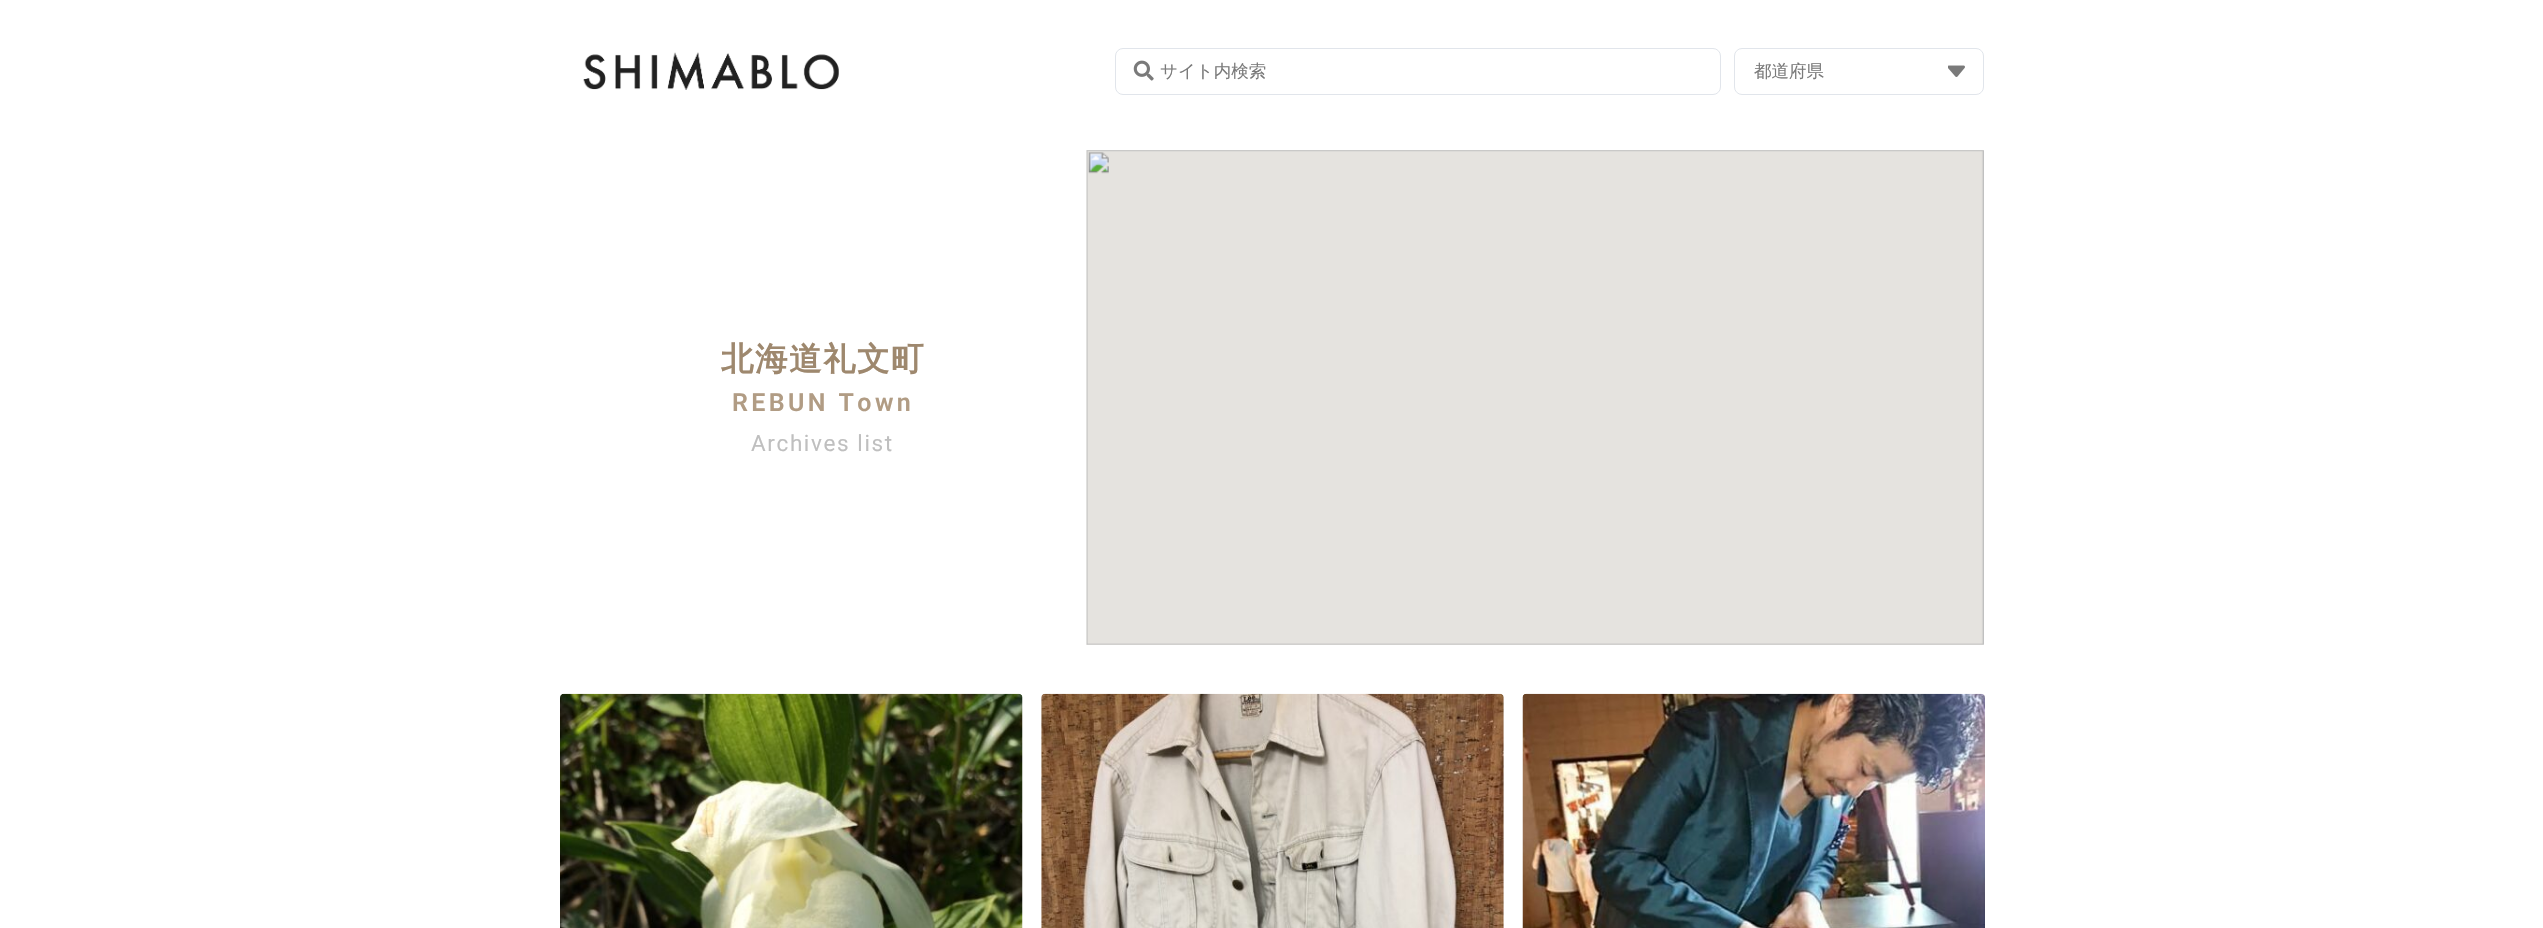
#include "include/core/SkBlurTypes.h"
#include "include/core/SkCanvas.h"
#include "include/core/SkData.h"
#include "include/core/SkFont.h"
#include "include/core/SkFontMgr.h"
#include "include/core/SkImage.h"
#include "include/core/SkMaskFilter.h"
#include "include/core/SkPaint.h"
#include "include/core/SkPathBuilder.h"
#include "include/core/SkTextBlob.h"
#include "include/effects/SkDashPathEffect.h"
#include "include/effects/SkGradientShader.h"
#include "include/utils/SkParsePath.h"

extern sk_sp<SkFontMgr> fontMgr;

void draw(SkCanvas* canvas) {
    SkPaint p;
    p.setAntiAlias(true);
    auto font = [&](const char* family, int weight, float size, bool italic = false) {
        SkFontStyle style(weight, SkFontStyle::kNormal_Width,
            italic ? SkFontStyle::kItalic_Slant : SkFontStyle::kUpright_Slant);
        SkFont result(fontMgr->matchFamilyStyle(family, style), size);
        result.setSubpixel(true);
        return result;
    };
    auto drawTracked = [&](const char* s, float x, float y, const SkFont& font, const SkPaint& ink, float letter, float word) {
        std::vector<SkGlyphID> glyphs(font.countText(s, strlen(s), SkTextEncoding::kUTF8));
        std::vector<float> xs(glyphs.size());
        font.textToGlyphs(s, strlen(s), SkTextEncoding::kUTF8, glyphs);
        font.getXPos(glyphs, xs, x);
        float extra = 0;
        for (size_t i = 0; i < glyphs.size(); i++) {
            xs[i] += extra;
            extra += letter + word * (glyphs[i] == font.unicharToGlyph(' '));
        }
        canvas->drawTextBlob(SkTextBlob::MakeFromPosHGlyphs(glyphs, xs, y, font), 0, 0, ink);
    };
    auto drawPhoto = [&](const char* path, float l, float t, float r, float b) {
        auto image = SkImages::DeferredFromEncodedData(SkData::MakeFromFileName(path));
        canvas->drawImageRect(image, SkRect::MakeLTRB(l, t, r, b), SkSamplingOptions());
    };
    canvas->clear(0xFFFFFFFF);
    drawPhoto("media/1.png", 583, 52, 839, 90);
    p.setStyle(SkPaint::kStroke_Style);
    p.setStrokeWidth(1);
    p.setColor(0xFFE1E5EB);
    canvas->drawRoundRect(SkRect::MakeLTRB(1115.5f, 48.5f, 1720.5f, 94.5f), 7.5f, 7.5f, p);
    drawPhoto("media/2.png", 1133, 60, 1154, 81);
    auto font1 = font("WenQuanYi Zen Hei", 500, 17.5f);
    p.setStyle(SkPaint::kFill_Style);
    p.setColor(0xFF7A7A7A);
    canvas->drawString("サイト内検索", 1160, 77, font1, p);
    p.setStyle(SkPaint::kStroke_Style);
    p.setColor(0xFFE1E5EB);
    canvas->drawRoundRect(SkRect::MakeLTRB(1734.5f, 48.5f, 1983.5f, 94.5f), 7.5f, 7.5f, p);
    p.setStyle(SkPaint::kFill_Style);
    p.setColor(0xFF7A7A7A);
    canvas->drawString("都道府県", 1754, 77, font1, p);
    drawPhoto("media/3.png", 1948, 65, 1965, 77);
    auto font2 = font("WenQuanYi Zen Hei", 700, 32.5f);
    p.setColor(0xFF9E886E);
    drawTracked("北海道礼文町", 721, 370, font2, p, 1.5f, 0);
    auto font3 = font("Roboto", 600, 25);
    p.setColor(0xFFB19C84);
    drawTracked("REBUN Town", 732, 411, font3, p, 3.4f, 0);
    auto font4 = font("Roboto", 400, 22.5f);
    p.setColor(0xFFBFBFBF);
    drawTracked("Archives list", 751, 451, font4, p, 1.6f, 0);
    drawPhoto("media/4.png", 1086, 150, 1984, 645);
    drawPhoto("media/5.png", 560, 693, 1023, 928);
    drawPhoto("media/6.png", 1041, 693, 1504, 928);
    drawPhoto("media/7.png", 1522, 693, 1985, 928);
}
